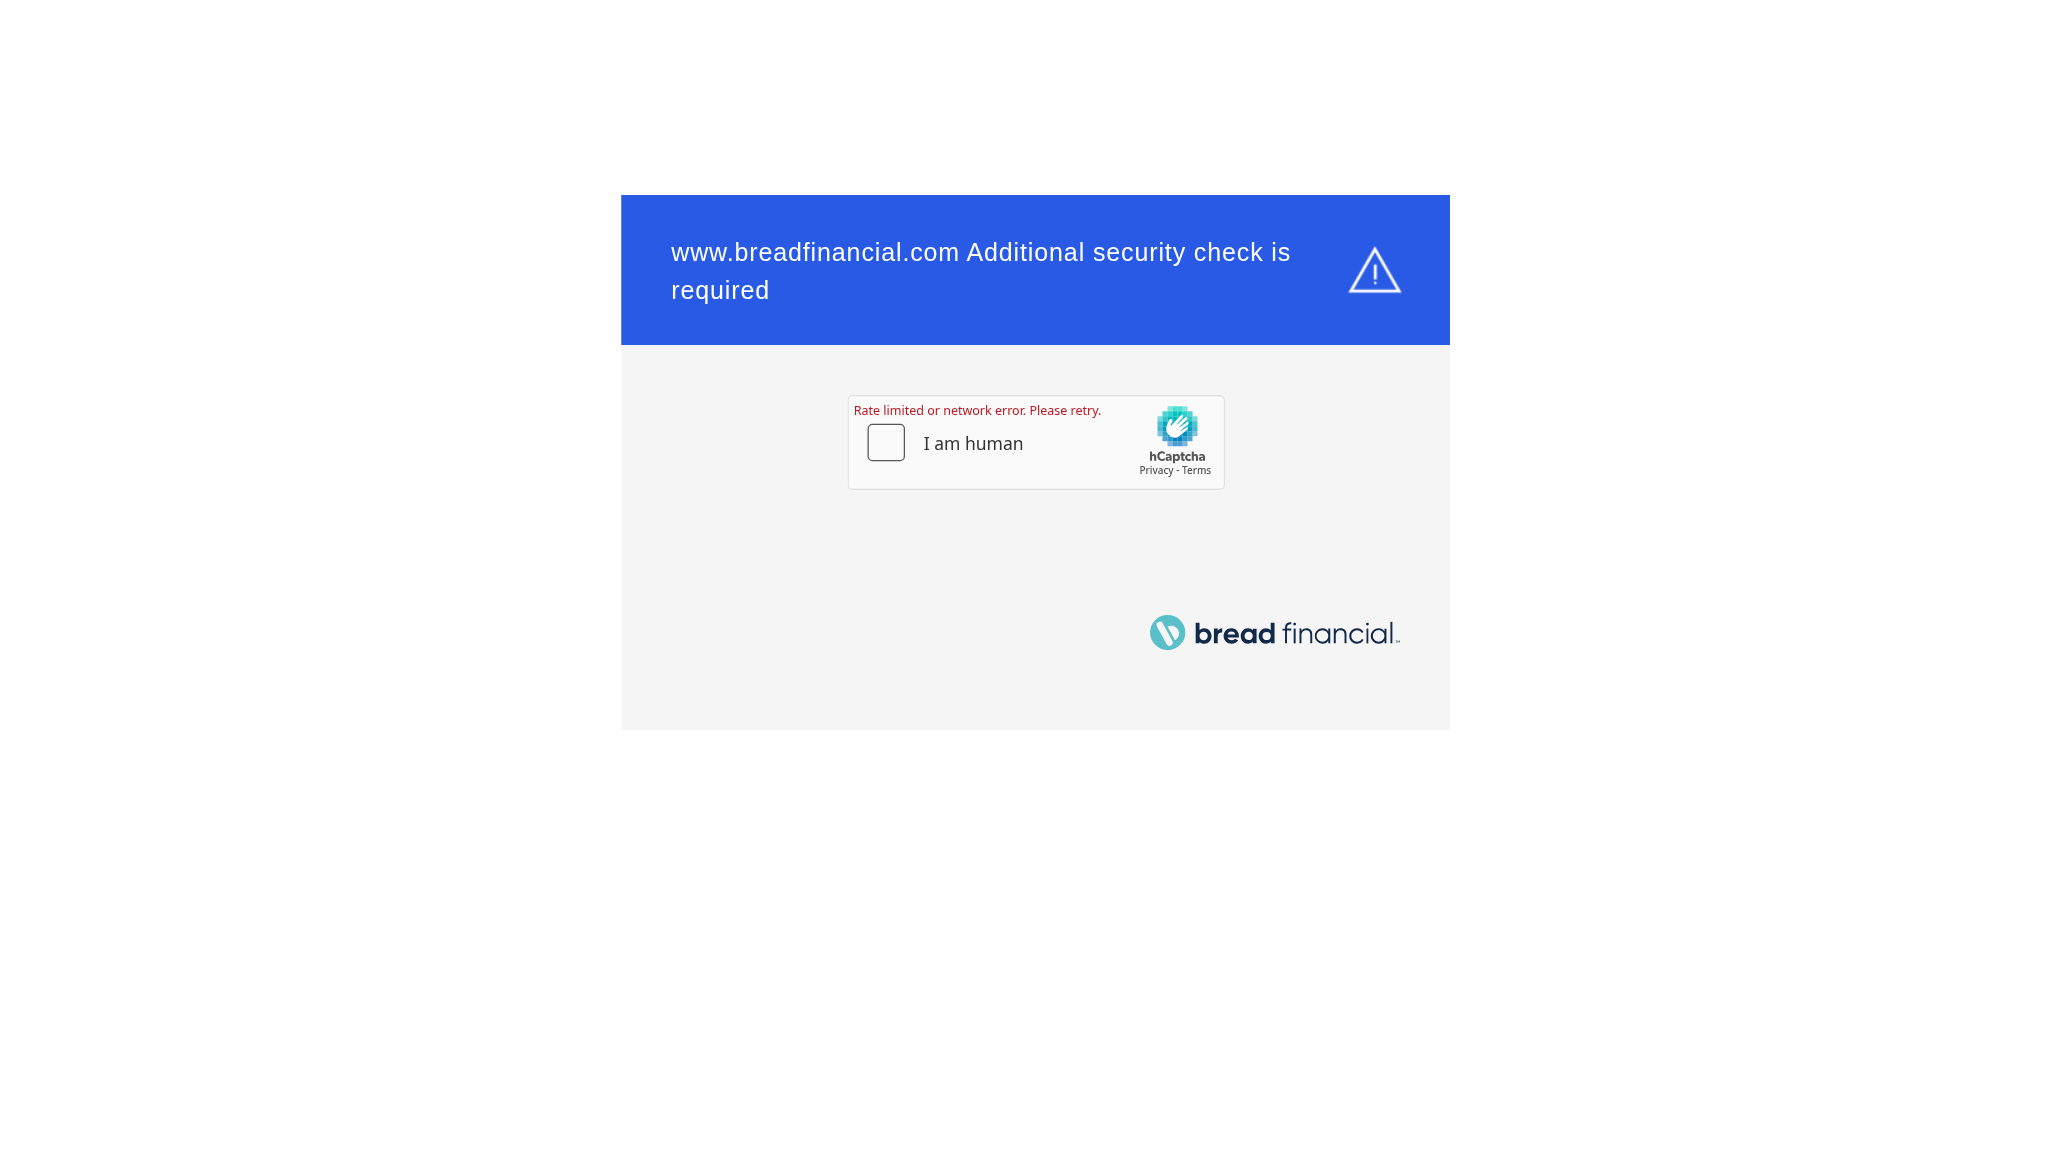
#include "include/core/SkBlurTypes.h"
#include "include/core/SkCanvas.h"
#include "include/core/SkData.h"
#include "include/core/SkFont.h"
#include "include/core/SkFontMgr.h"
#include "include/core/SkImage.h"
#include "include/core/SkMaskFilter.h"
#include "include/core/SkPaint.h"
#include "include/core/SkPathBuilder.h"
#include "include/core/SkTextBlob.h"
#include "include/effects/SkDashPathEffect.h"
#include "include/effects/SkGradientShader.h"
#include "include/utils/SkParsePath.h"

extern sk_sp<SkFontMgr> fontMgr;

void draw(SkCanvas* canvas) {
    SkPaint p;
    p.setAntiAlias(true);
    auto drawPhoto = [&](const char* path, float l, float t, float r, float b) {
        auto image = SkImages::DeferredFromEncodedData(SkData::MakeFromFileName(path));
        canvas->drawImageRect(image, SkRect::MakeLTRB(l, t, r, b), SkSamplingOptions());
    };
    canvas->clear(0xFFFFFFFF);
    drawPhoto("media/1.png", 621, 195, 1450, 730);
}
